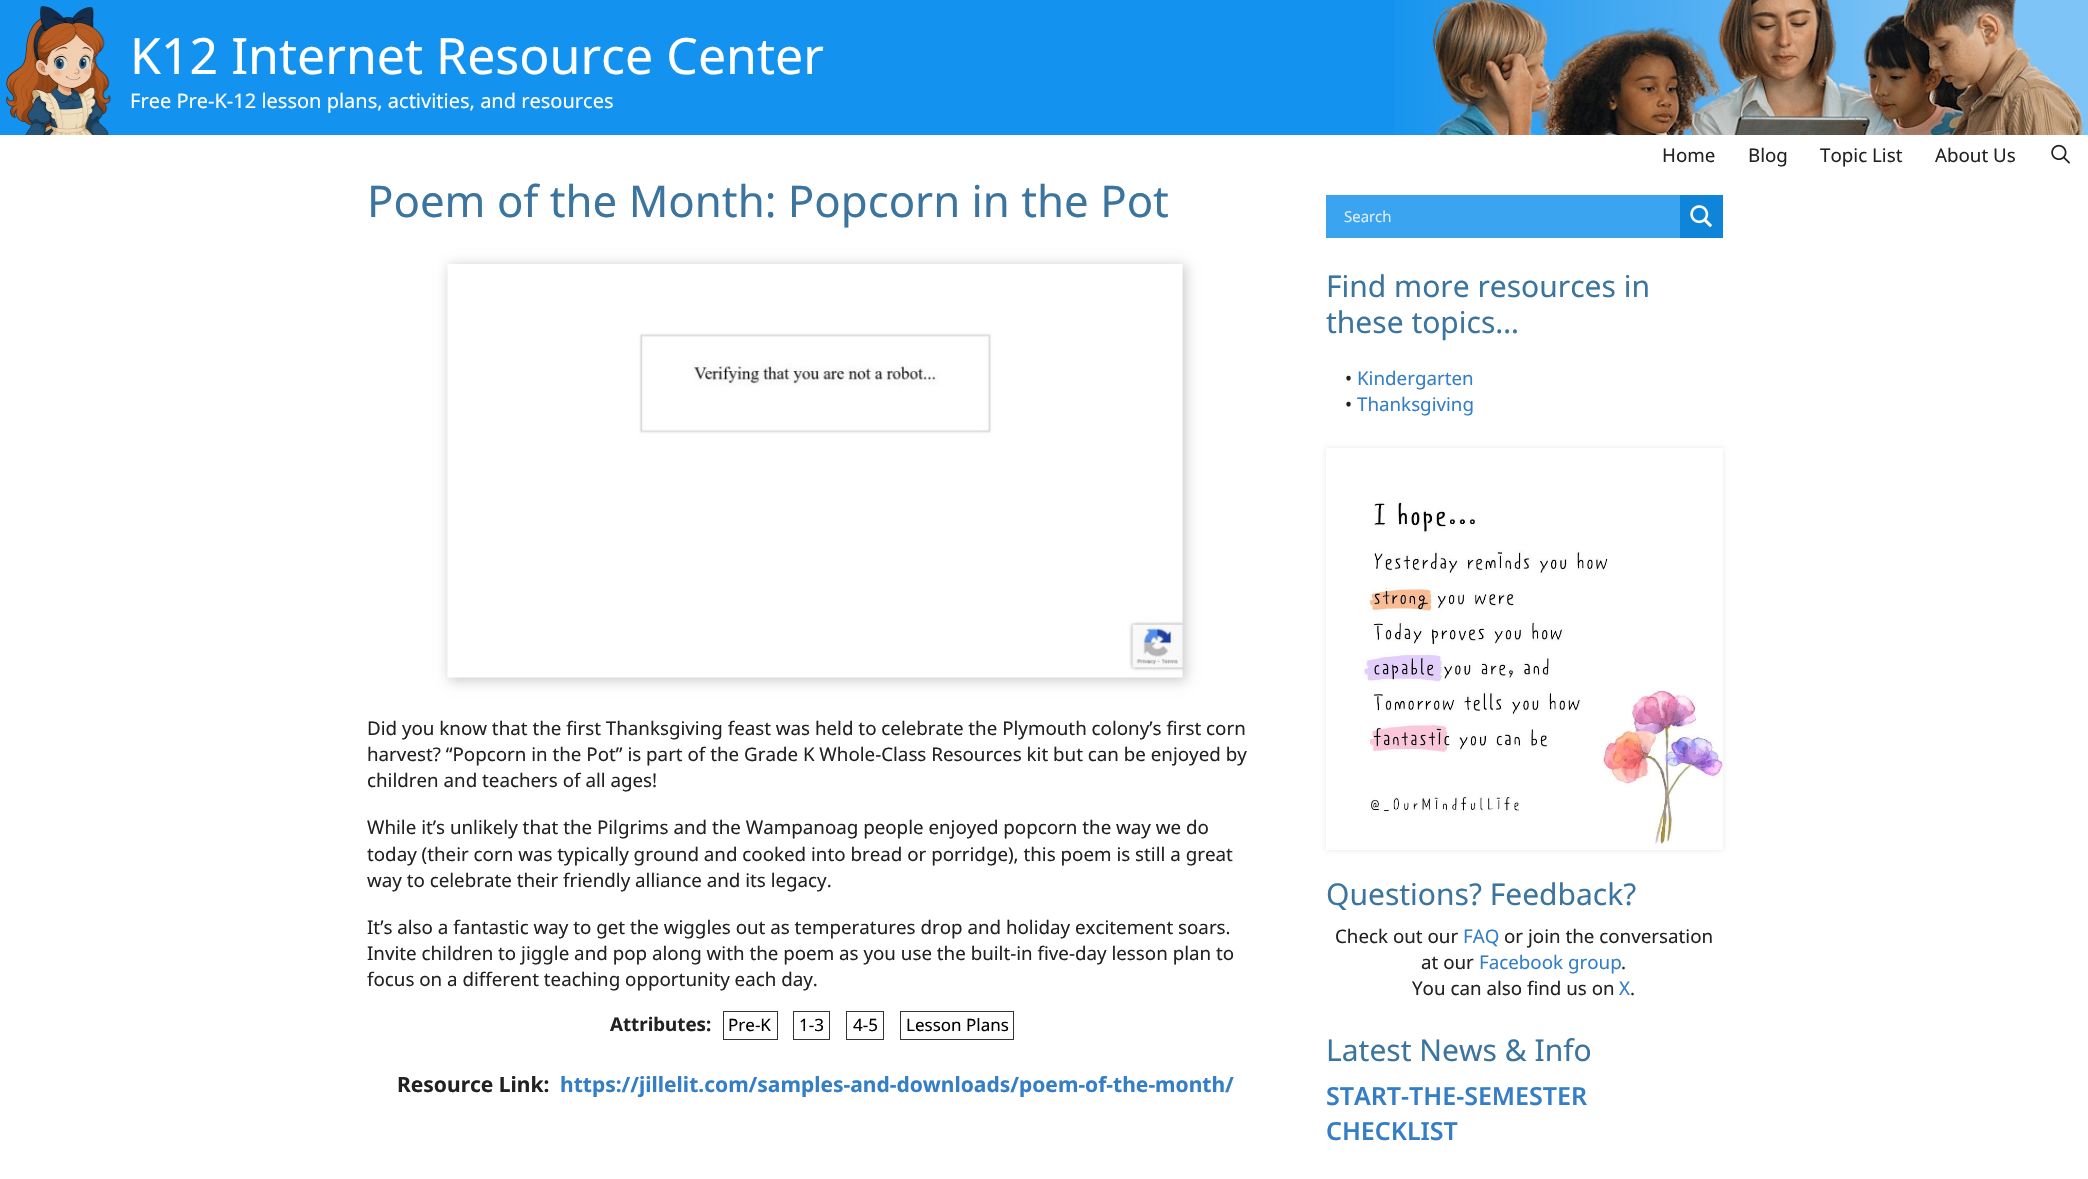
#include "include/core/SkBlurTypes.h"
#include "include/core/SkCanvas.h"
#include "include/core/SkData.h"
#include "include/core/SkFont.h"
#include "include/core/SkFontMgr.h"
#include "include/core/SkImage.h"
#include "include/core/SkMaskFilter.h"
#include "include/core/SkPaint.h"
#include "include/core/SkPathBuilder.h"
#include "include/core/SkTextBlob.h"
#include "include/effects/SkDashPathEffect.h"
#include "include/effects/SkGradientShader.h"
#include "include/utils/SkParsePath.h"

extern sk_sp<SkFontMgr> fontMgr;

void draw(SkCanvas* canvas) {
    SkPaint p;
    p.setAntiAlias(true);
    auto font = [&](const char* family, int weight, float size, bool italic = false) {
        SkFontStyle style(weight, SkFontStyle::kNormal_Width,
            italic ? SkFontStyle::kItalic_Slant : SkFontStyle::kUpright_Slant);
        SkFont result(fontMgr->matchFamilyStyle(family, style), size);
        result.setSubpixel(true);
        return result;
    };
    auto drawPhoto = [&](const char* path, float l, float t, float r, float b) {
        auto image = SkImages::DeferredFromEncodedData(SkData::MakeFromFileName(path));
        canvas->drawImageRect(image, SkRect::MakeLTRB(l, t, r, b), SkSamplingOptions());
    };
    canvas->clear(0xFFFFFFFF);
    p.setColor(0xFF1393EF);
    canvas->drawRect(SkRect::MakeLTRB(0, 0, 1395, 135), p);
    drawPhoto("media/1.png", 1395, 0, 2088, 135);
    drawPhoto("media/2.png", 6, 6, 112, 135);
    auto font1 = font("Noto Sans", 400, 50);
    p.setColor(0xFFFFFFFF);
    canvas->drawString("K12 Internet Resource Center", 130, 74, font1, p);
    auto font2 = font("Noto Sans", 400, 20);
    canvas->drawString("Free Pre-K-12 lesson plans, activities, and resources", 130, 108, font2, p);
    auto font3 = font("Noto Sans", 400, 18.75f);
    p.setColor(0xFF222222);
    {
        const struct { const char* s; float x, y; } items[] = {
            {"Home", 1662, 162},
            {"Blog", 1748, 162},
            {"Topic List", 1820, 162},
            {"About Us", 1935, 162},
        };
        for (auto [s, x, y] : items) {
            canvas->drawString(s, x, y, font3, p);
        }
    }
    drawPhoto("media/3.png", 2051, 144, 2070, 164);
    auto font4 = font("Noto Sans", 400, 43.75f);
    p.setColor(0xFF3B759F);
    canvas->drawString("Poem of the Month: Popcorn in the Pot", 367, 217, font4, p);
    p.setColor(0xFFCCCCCC);
    p.setMaskFilter(SkMaskFilter::MakeBlur(kNormal_SkBlurStyle, 6));
    canvas->drawRect(SkRect::MakeLTRB(449, 265, 1186, 681), p);
    p.setMaskFilter(nullptr);
    drawPhoto("media/4.png", 447, 264, 1183, 678);
    p.setColor(0xFF222222);
    {
        const struct { const char* s; float x, y; } items[] = {
            {"Did you know that the first Thanksgiving feast was held to celebrate the Plymouth colony’s first corn", 367, 735},
            {"harvest? “Popcorn in the Pot” is part of the Grade K Whole-Class Resources kit but can be enjoyed by", 367, 761},
            {"children and teachers of all ages!", 367, 787},
            {"While it’s unlikely that the Pilgrims and the Wampanoag people enjoyed popcorn the way we do", 367, 834},
            {"today (their corn was typically ground and cooked into bread or porridge), this poem is still a great", 367, 861},
            {"way to celebrate their friendly alliance and its legacy.", 367, 887},
            {"It’s also a fantastic way to get the wiggles out as temperatures drop and holiday excitement soars.", 367, 934},
            {"Invite children to jiggle and pop along with the poem as you use the built-in five-day lesson plan to", 367, 960},
            {"focus on a different teaching opportunity each day.", 367, 986},
        };
        for (auto [s, x, y] : items) {
            canvas->drawString(s, x, y, font3, p);
        }
    }
    auto font5 = font("Noto Sans", 700, 18.75f);
    canvas->drawString("Attributes:", 610, 1031, font5, p);
    p.setStyle(SkPaint::kStroke_Style);
    p.setStrokeWidth(1);
    p.setColor(0xFF333333);
    canvas->drawRect(SkRect::MakeLTRB(723.5f, 1011.5f, 777.5f, 1039.5f), p);
    auto font6 = font("Noto Sans", 400, 17);
    p.setStyle(SkPaint::kFill_Style);
    p.setColor(0xFF000000);
    canvas->drawString("Pre-K", 728, 1031, font6, p);
    p.setStyle(SkPaint::kStroke_Style);
    p.setColor(0xFF333333);
    canvas->drawRect(SkRect::MakeLTRB(793.5f, 1011.5f, 829.5f, 1039.5f), p);
    p.setStyle(SkPaint::kFill_Style);
    p.setColor(0xFF000000);
    canvas->drawString("1-3", 799, 1031, font6, p);
    p.setStyle(SkPaint::kStroke_Style);
    p.setColor(0xFF333333);
    canvas->drawRect(SkRect::MakeLTRB(846.5f, 1011.5f, 883.5f, 1039.5f), p);
    p.setStyle(SkPaint::kFill_Style);
    p.setColor(0xFF000000);
    canvas->drawString("4-5", 853, 1031, font6, p);
    p.setStyle(SkPaint::kStroke_Style);
    p.setColor(0xFF333333);
    canvas->drawRect(SkRect::MakeLTRB(900.5f, 1011.5f, 1013.5f, 1039.5f), p);
    p.setStyle(SkPaint::kFill_Style);
    p.setColor(0xFF000000);
    canvas->drawString("Lesson Plans", 906, 1031, font6, p);
    auto font7 = font("Noto Sans", 700, 21);
    p.setColor(0xFF222222);
    canvas->drawString("Resource Link:", 397, 1092, font7, p);
    p.setColor(0xFF337EC7);
    canvas->drawString("https://jillelit.com/samples-and-downloads/poem-of-the-month/", 560, 1092, font7, p);
    p.setColor(0xFF3AA4F0);
    canvas->drawRect(SkRect::MakeLTRB(1326, 195, 1680, 238), p);
    auto font8 = font("Open Sans", 400, 15);
    p.setColor(0xFFE1F1FD);
    canvas->drawString("Search", 1344, 222, font8, p);
    p.setColor(0xFF0F85DA);
    canvas->drawRect(SkRect::MakeLTRB(1680, 195, 1723, 238), p);
    drawPhoto("media/5.png", 1690, 205, 1713, 228);
    auto font9 = font("Noto Sans", 400, 30);
    p.setColor(0xFF3B759F);
    canvas->drawString("Find more resources in", 1326, 297, font9, p);
    canvas->drawString("these topics…", 1326, 333, font9, p);
    p.setColor(0xFF222222);
    canvas->drawString("•", 1345, 385, font3, p);
    p.setColor(0xFF337EC7);
    canvas->drawString("Kindergarten", 1357, 385, font3, p);
    p.setColor(0xFF222222);
    canvas->drawString("•", 1345, 411, font3, p);
    p.setColor(0xFF337EC7);
    canvas->drawString("Thanksgiving", 1357, 411, font3, p);
    canvas->save();
    canvas->clipPath(SkPathBuilder(SkPathFillType::kEvenOdd).moveTo(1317, 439).lineTo(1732, 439).lineTo(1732, 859).lineTo(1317, 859).close().moveTo(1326, 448).lineTo(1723, 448).lineTo(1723, 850).lineTo(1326, 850).close().detach(), true);
    p.setColor(0xFFE7E7E7);
    p.setMaskFilter(SkMaskFilter::MakeBlur(kNormal_SkBlurStyle, 2.5f));
    canvas->drawRect(SkRect::MakeLTRB(1326, 448, 1723, 850), p);
    p.setMaskFilter(nullptr);
    canvas->restore();
    drawPhoto("media/6.png", 1362, 502, 1723, 844);
    p.setColor(0xFF3B759F);
    canvas->drawString("Questions? Feedback?", 1326, 905, font9, p);
    p.setColor(0xFF222222);
    canvas->drawString("Check out our", 1335, 943, font3, p);
    p.setColor(0xFF337EC7);
    canvas->drawString("FAQ", 1463, 943, font3, p);
    p.setColor(0xFF222222);
    canvas->drawString("or join the conversation", 1504, 943, font3, p);
    canvas->drawString("at our", 1421, 969, font3, p);
    p.setColor(0xFF337EC7);
    canvas->drawString("Facebook group", 1479, 969, font3, p);
    p.setColor(0xFF222222);
    canvas->drawString(".", 1621, 969, font3, p);
    canvas->drawString("You can also find us on", 1412, 995, font3, p);
    p.setColor(0xFF337EC7);
    canvas->drawString("X", 1619, 995, font3, p);
    p.setColor(0xFF222222);
    canvas->drawString(".", 1630, 995, font3, p);
    p.setColor(0xFF3B759F);
    canvas->drawString("Latest News & Info", 1326, 1061, font9, p);
    auto font10 = font("Noto Sans", 600, 25);
    p.setColor(0xFF337EC7);
    canvas->drawString("START‑THE‑SEMESTER", 1326, 1105, font10, p);
    canvas->drawString("CHECKLIST", 1326, 1140, font10, p);
}
